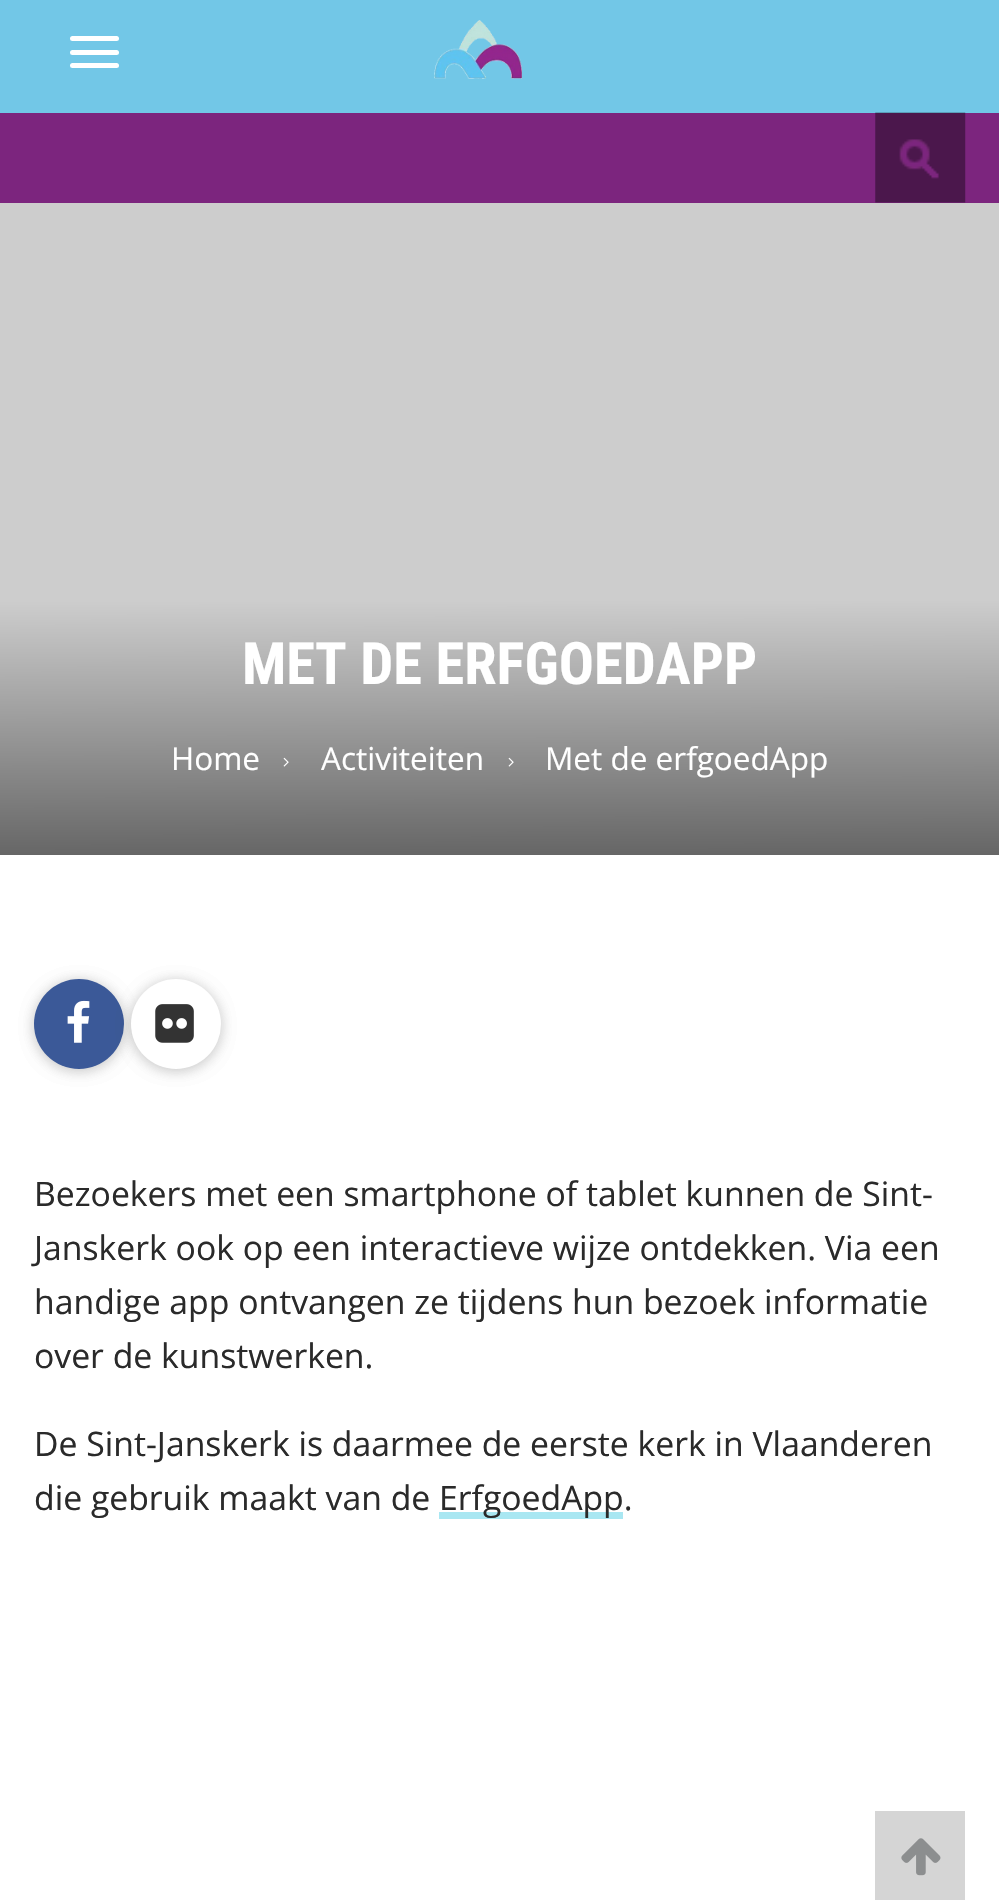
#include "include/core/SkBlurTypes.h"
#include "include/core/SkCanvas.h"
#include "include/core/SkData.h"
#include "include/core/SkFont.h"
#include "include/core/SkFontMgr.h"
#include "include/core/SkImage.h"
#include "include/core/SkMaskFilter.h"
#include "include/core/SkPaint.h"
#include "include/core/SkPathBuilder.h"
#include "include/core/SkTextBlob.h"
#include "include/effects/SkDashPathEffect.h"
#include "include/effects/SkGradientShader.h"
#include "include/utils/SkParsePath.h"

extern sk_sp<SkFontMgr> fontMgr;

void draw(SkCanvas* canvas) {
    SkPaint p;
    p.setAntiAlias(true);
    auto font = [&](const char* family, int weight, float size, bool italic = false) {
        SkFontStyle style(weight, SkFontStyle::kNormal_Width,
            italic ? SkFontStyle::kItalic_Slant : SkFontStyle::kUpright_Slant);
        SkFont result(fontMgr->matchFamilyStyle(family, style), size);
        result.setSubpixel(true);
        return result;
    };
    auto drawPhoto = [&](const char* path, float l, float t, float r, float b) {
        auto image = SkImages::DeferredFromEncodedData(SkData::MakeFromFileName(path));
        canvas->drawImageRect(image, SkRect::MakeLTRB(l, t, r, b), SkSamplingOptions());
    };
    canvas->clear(0xFFFFFFFF);
    p.setColor(0xFF7C257E);
    canvas->drawRect(SkRect::MakeLTRB(0, 113, 999, 203), p);
    p.setColor(0xFF72C7E7);
    canvas->drawRect(SkRect::MakeLTRB(0, 0, 999, 113), p);
    drawPhoto("media/1.png", 434, 20, 522, 79);
    p.setColor(0xFFFFFFFF);
    canvas->drawRoundRect(SkRect::MakeLTRB(70, 36, 119, 41), 2.5f, 2.5f, p);
    canvas->drawRoundRect(SkRect::MakeLTRB(70, 50, 119, 55), 2.5f, 2.5f, p);
    canvas->drawRoundRect(SkRect::MakeLTRB(70, 63, 119, 68), 2.5f, 2.5f, p);
    drawPhoto("media/2.png", 875, 112, 966, 203);
    {
        const SkColor colors[] = {0xFFCDCDCD, 0xFF666666};
        const float stops[] = {0.61f, 1};
        const SkPoint ends[] = {{499, 202}, {500, 855}};
        p.setShader(SkGradientShader::MakeLinear(ends, colors, stops, 2, SkTileMode::kClamp));
        p.setAlpha(255);
    }
    canvas->drawRect(SkRect::MakeLTRB(0, 203, 999, 855), p);
    auto font1 = font("Roboto Condensed", 700, 58.5f);
    p.setShader(nullptr);
    p.setColor(0xFFFFFFFF);
    canvas->drawString("MET DE ERFGOEDAPP", 242, 684, font1, p);
    auto font2 = font("Open Sans", 400, 31.5f);
    canvas->drawString("Home", 171, 770, font2, p);
    drawPhoto("media/3.png", 283, 757, 289, 767);
    canvas->drawString("Activiteiten", 321, 770, font2, p);
    drawPhoto("media/4.png", 508, 757, 514, 767);
    canvas->drawString("Met de erfgoedApp", 545, 770, font2, p);
    p.setColor(0x1F000000);
    p.setMaskFilter(SkMaskFilter::MakeBlur(kNormal_SkBlurStyle, 7));
    canvas->drawRoundRect(SkRect::MakeLTRB(34, 981, 124, 1071), 45, 45, p);
    p.setMaskFilter(nullptr);
    p.setMaskFilter(SkMaskFilter::MakeBlur(kNormal_SkBlurStyle, 7));
    canvas->drawRoundRect(SkRect::MakeLTRB(34, 981, 124, 1071), 45, 45, p);
    p.setMaskFilter(nullptr);
    p.setColor(0xFF3B5998);
    canvas->drawCircle(79, 1024, 45, p);
    drawPhoto("media/5.png", 67, 1000, 90, 1043);
    p.setColor(0x1F000000);
    p.setMaskFilter(SkMaskFilter::MakeBlur(kNormal_SkBlurStyle, 7));
    canvas->drawRoundRect(SkRect::MakeLTRB(131, 981, 221, 1071), 45, 45, p);
    p.setMaskFilter(nullptr);
    p.setMaskFilter(SkMaskFilter::MakeBlur(kNormal_SkBlurStyle, 7));
    canvas->drawRoundRect(SkRect::MakeLTRB(131, 981, 221, 1071), 45, 45, p);
    p.setMaskFilter(nullptr);
    p.setColor(0xFFFFFFFF);
    canvas->drawCircle(176, 1024, 45, p);
    drawPhoto("media/6.png", 155, 1004, 194, 1043);
    auto font3 = font("Open Sans", 400, 33.75f);
    p.setColor(0xFF2A2A2A);
    {
        const struct { const char* s; float x, y; } items[] = {
            {"Bezoekers met een smartphone of tablet kunnen de Sint-", 34, 1206},
            {"Janskerk ook op een interactieve wijze ontdekken. Via een", 34, 1260},
            {"handige app ontvangen ze tijdens hun bezoek informatie", 34, 1314},
            {"over de kunstwerken.", 34, 1368},
            {"De Sint-Janskerk is daarmee de eerste kerk in Vlaanderen", 34, 1456},
            {"die gebruik maakt van de", 34, 1510},
        };
        for (auto [s, x, y] : items) {
            canvas->drawString(s, x, y, font3, p);
        }
    }
    p.setColor(0xFFA9E7F2);
    canvas->drawRect(SkRect::MakeLTRB(439, 1512, 623, 1519), p);
    p.setColor(0xFF2A2A2A);
    canvas->drawString("ErfgoedApp.", 439, 1510, font3, p);
    p.setColor(0xFFD5D5D5);
    canvas->drawRect(SkRect::MakeLTRB(875, 1811, 965, 1900), p);
    drawPhoto("media/7.png", 901, 1838, 941, 1876);
}
